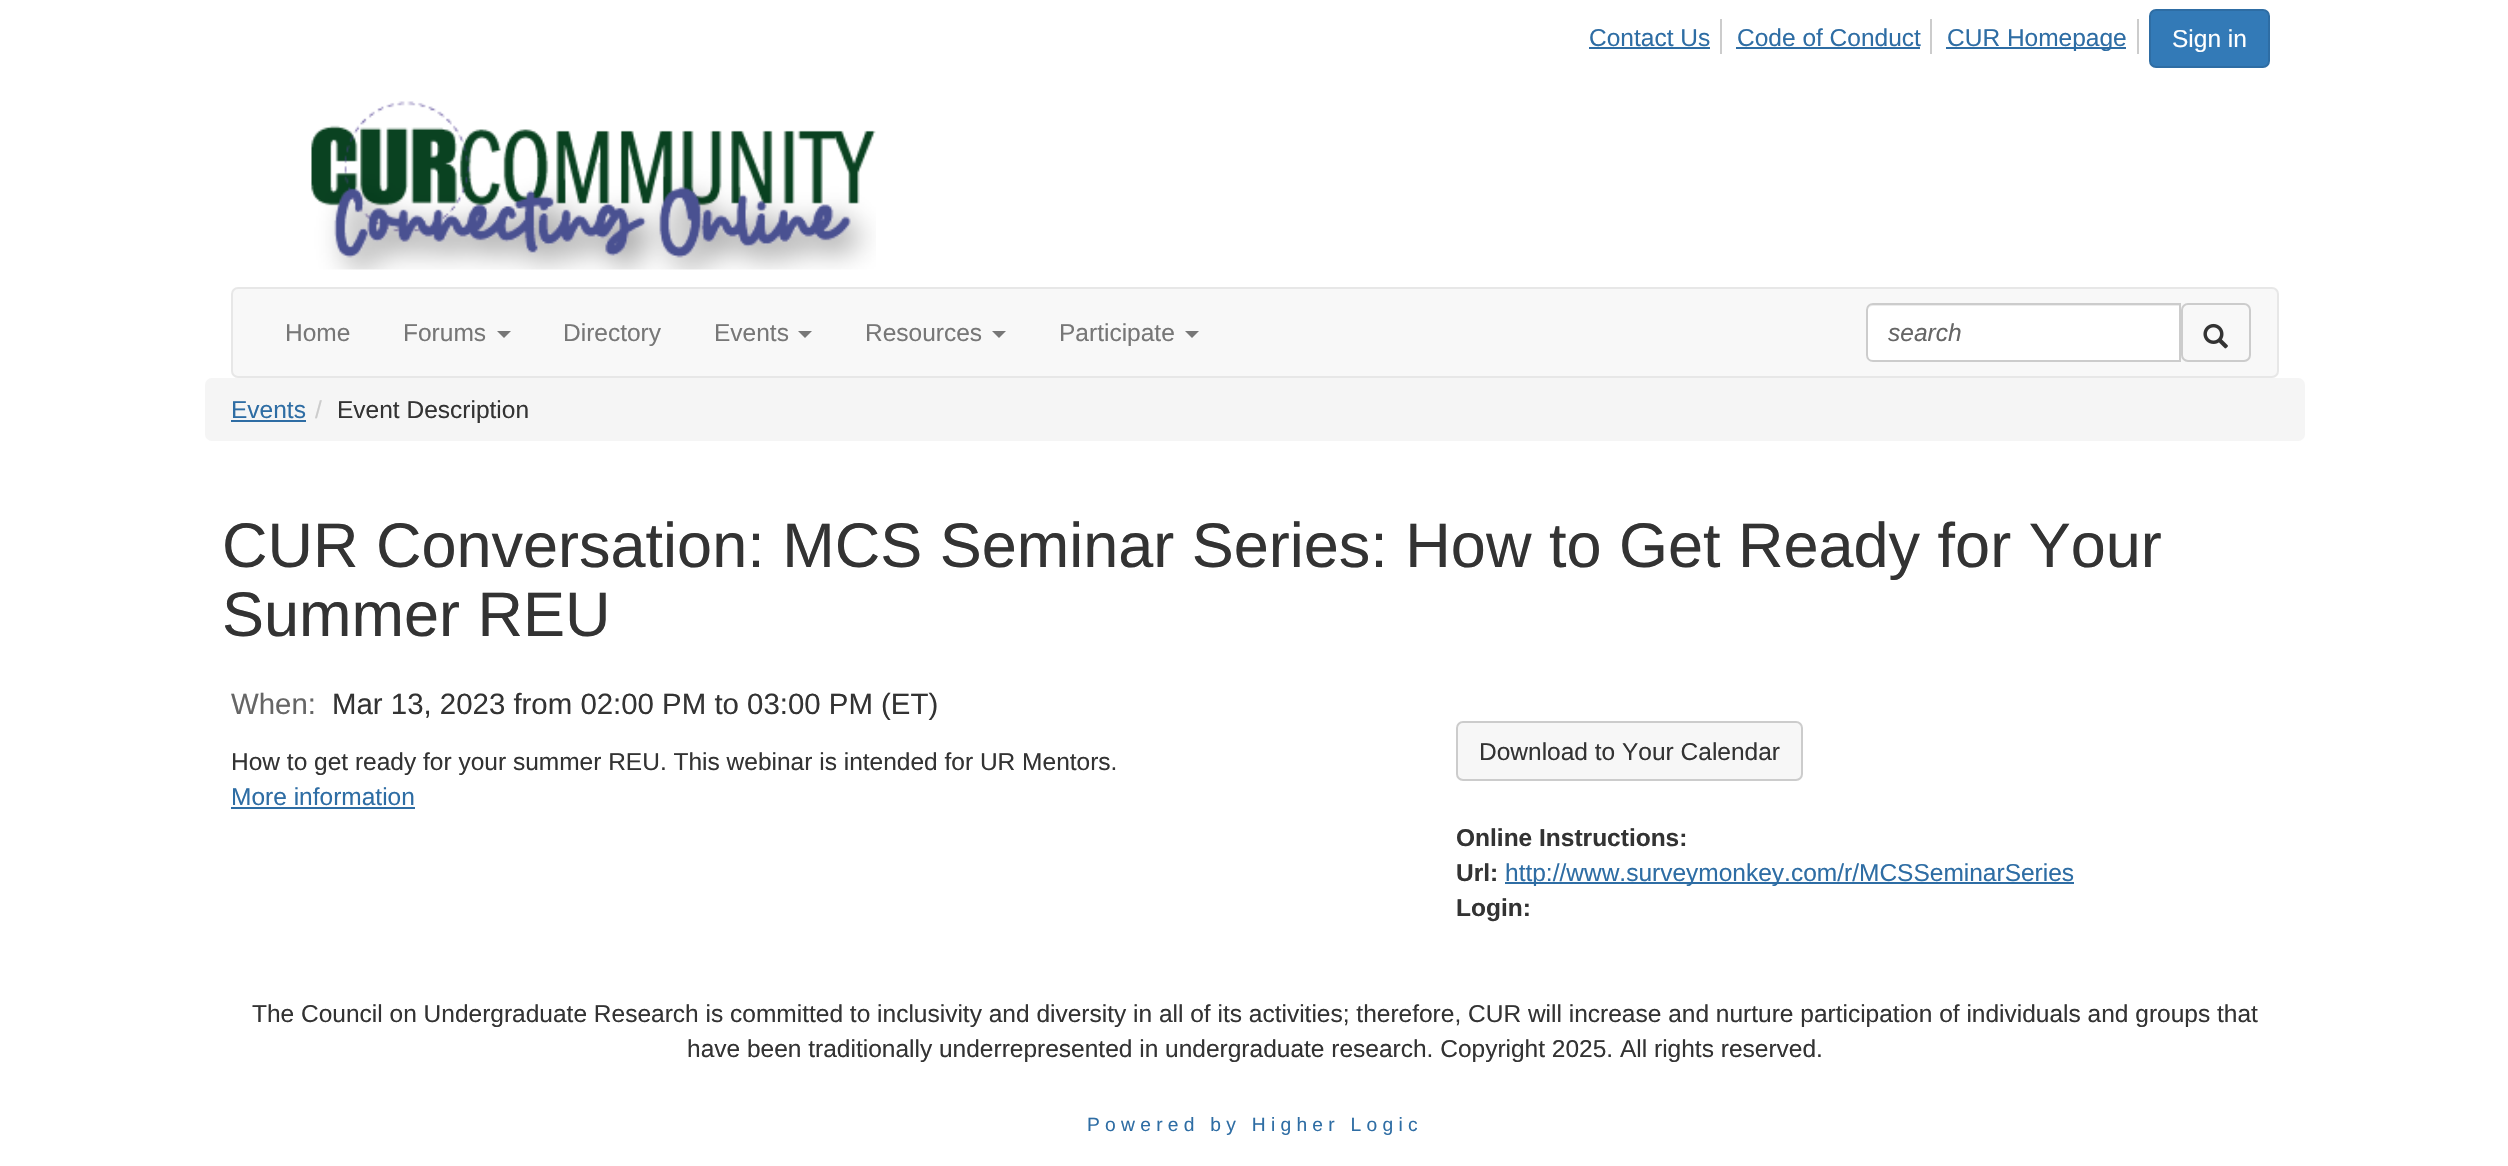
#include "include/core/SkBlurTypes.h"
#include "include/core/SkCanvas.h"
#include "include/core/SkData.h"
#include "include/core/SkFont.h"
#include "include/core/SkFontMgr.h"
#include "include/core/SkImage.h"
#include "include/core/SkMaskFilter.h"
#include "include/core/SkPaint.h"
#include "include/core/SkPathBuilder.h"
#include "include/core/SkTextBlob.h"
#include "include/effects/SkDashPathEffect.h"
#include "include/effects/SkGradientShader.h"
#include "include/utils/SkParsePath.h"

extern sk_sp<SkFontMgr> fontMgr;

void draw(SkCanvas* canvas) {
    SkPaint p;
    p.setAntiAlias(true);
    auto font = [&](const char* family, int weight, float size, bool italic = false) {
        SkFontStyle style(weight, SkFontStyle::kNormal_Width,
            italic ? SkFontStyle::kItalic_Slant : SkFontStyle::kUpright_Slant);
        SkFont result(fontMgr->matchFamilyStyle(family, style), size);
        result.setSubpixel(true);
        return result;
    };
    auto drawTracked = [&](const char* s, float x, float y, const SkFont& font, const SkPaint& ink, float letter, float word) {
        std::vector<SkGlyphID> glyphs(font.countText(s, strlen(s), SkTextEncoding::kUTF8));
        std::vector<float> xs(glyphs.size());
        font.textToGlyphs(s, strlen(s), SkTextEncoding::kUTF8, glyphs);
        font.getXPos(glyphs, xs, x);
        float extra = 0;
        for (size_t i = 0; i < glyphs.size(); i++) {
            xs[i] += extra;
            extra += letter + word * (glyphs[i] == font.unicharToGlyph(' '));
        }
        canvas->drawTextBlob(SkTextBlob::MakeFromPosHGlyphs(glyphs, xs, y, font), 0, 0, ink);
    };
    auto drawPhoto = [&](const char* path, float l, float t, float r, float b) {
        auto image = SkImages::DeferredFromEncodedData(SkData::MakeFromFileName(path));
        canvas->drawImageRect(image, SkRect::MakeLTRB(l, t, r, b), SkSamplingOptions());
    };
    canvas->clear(0xFFFFFFFF);
    p.setColor(0xFFCCCCCC);
    canvas->drawRect(SkRect::MakeLTRB(1720, 19, 1722, 54), p);
    auto font1 = font("Liberation Sans", 400, 24.5f);
    p.setColor(0xFF2E6DA4);
    canvas->drawString("Contact Us", 1589, 46, font1, p);
    canvas->drawRect(SkRect::MakeLTRB(1589, 47, 1710, 49), p);
    p.setColor(0xFFCCCCCC);
    canvas->drawRect(SkRect::MakeLTRB(1930, 19, 1932, 54), p);
    p.setColor(0xFF2E6DA4);
    canvas->drawString("Code of Conduct", 1737, 46, font1, p);
    {
        const struct { float l, t, r, b; SkColor color; } items[] = {
            {1736, 47, 1920, 49, 0xFF2E6DA4},
            {2137, 19, 2139, 54, 0xFFCCCCCC},
            {1946, 47, 2126, 49, 0xFF2E6DA4},
        };
        for (auto [l, t, r, b, color] : items) {
            p.setColor(color);
            canvas->drawRect(SkRect::MakeLTRB(l, t, r, b), p);
        }
    }
    canvas->drawString("CUR Homepage", 1947, 46, font1, p);
    p.setColor(0xFF337AB7);
    canvas->drawRoundRect(SkRect::MakeLTRB(2150, 10, 2269, 67), 6, 6, p);
    p.setStyle(SkPaint::kStroke_Style);
    p.setStrokeWidth(2);
    p.setColor(0xFF2E6DA4);
    canvas->drawRoundRect(SkRect::MakeLTRB(2150, 10, 2269, 67), 6, 6, p);
    p.setStyle(SkPaint::kFill_Style);
    p.setColor(0xFFFFFFFF);
    canvas->drawString("Sign in", 2172, 47, font1, p);
    drawPhoto("media/1.png", 311, 101, 876, 270);
    p.setColor(0xFFF8F8F8);
    canvas->drawRoundRect(SkRect::MakeLTRB(232, 288, 2278, 377), 6, 6, p);
    p.setStyle(SkPaint::kStroke_Style);
    p.setColor(0xFFE7E7E7);
    canvas->drawRoundRect(SkRect::MakeLTRB(232, 288, 2278, 377), 6, 6, p);
    p.setStyle(SkPaint::kFill_Style);
    p.setColor(0xFF777777);
    canvas->drawString("Home", 285, 341, font1, p);
    canvas->drawString("Forums", 403, 341, font1, p);
    canvas->drawPath(SkPathBuilder().moveTo(497, 331).lineTo(511, 331).lineTo(504, 338).close().detach(), p);
    canvas->drawString("Directory", 563, 341, font1, p);
    canvas->drawString("Events", 714, 341, font1, p);
    canvas->drawPath(SkPathBuilder().moveTo(798, 331).lineTo(812, 331).lineTo(805, 338).close().detach(), p);
    canvas->drawString("Resources", 865, 341, font1, p);
    canvas->drawPath(SkPathBuilder().moveTo(992, 331).lineTo(1006, 331).lineTo(999, 338).close().detach(), p);
    canvas->drawString("Participate", 1059, 341, font1, p);
    canvas->drawPath(SkPathBuilder().moveTo(1185, 331).lineTo(1199, 331).lineTo(1192, 338).close().detach(), p);
    p.setColor(0xFFFFFFFF);
    canvas->drawPath(SkPathBuilder().moveTo(1873, 303).lineTo(2181, 303).lineTo(2181, 362).lineTo(1873, 362).cubicTo(1869, 362, 1866, 359, 1866, 355).lineTo(1866, 310).cubicTo(1866, 306, 1869, 303, 1873, 303).close().detach(), p);
    p.setColor(0xFFECECEC);
    canvas->drawPath(SkPathBuilder().moveTo(1872, 306).lineTo(2179, 306).lineTo(2179, 305).lineTo(1871, 305).cubicTo(1867, 306, 1867, 309, 1867, 312).cubicTo(1867, 309, 1870, 306, 1872, 306).close().detach(), p);
    p.setStyle(SkPaint::kStroke_Style);
    p.setColor(0xFFCCCCCC);
    canvas->drawPath(SkPathBuilder().moveTo(1873, 304).lineTo(2180, 304).lineTo(2180, 361).lineTo(1873, 361).cubicTo(1869.5f, 361, 1867, 358.5f, 1867, 355).lineTo(1867, 310).cubicTo(1867, 306.5f, 1869.5f, 304, 1873, 304).close().detach(), p);
    auto font2 = font("Liberation Sans", 400, 24.5f, true);
    p.setStyle(SkPaint::kFill_Style);
    p.setColor(0xFF666666);
    canvas->drawString("search", 1888, 341, font2, p);
    p.setStyle(SkPaint::kStroke_Style);
    p.setColor(0xFFCCCCCC);
    canvas->drawRoundRect(SkRect::MakeLTRB(2182, 304, 2250, 361), 6, 6, p);
    drawPhoto("media/2.png", 2203, 323, 2228, 349);
    p.setStyle(SkPaint::kFill_Style);
    p.setColor(0xFFF5F5F5);
    canvas->drawRoundRect(SkRect::MakeLTRB(205, 378, 2305, 441), 7, 7, p);
    p.setColor(0xFF2E6DA4);
    canvas->drawString("Events", 231, 418, font1, p);
    canvas->drawRect(SkRect::MakeLTRB(231, 420, 306, 422), p);
    p.setColor(0xFFCCCCCC);
    canvas->drawString("/", 315, 418, font1, p);
    p.setColor(0xFF333333);
    canvas->drawString("Event Description", 337, 418, font1, p);
    auto font3 = font("Liberation Sans", 400, 63);
    canvas->drawString("CUR Conversation: MCS Seminar Series: How to Get Ready for Your", 222, 567, font3, p);
    canvas->drawString("Summer REU", 222, 636, font3, p);
    auto font4 = font("Liberation Sans", 400, 29.4f);
    p.setColor(0xFF666666);
    canvas->drawString("When:", 231, 714, font4, p);
    p.setColor(0xFF333333);
    canvas->drawString("Mar 13, 2023 from 02:00 PM to 03:00 PM (ET)", 332, 714, font4, p);
    canvas->drawString("How to get ready for your summer REU. This webinar is intended for UR Mentors.", 231, 770, font1, p);
    p.setColor(0xFF2E6DA4);
    canvas->drawString("More information", 231, 805, font1, p);
    canvas->drawRect(SkRect::MakeLTRB(231, 807, 415, 809), p);
    p.setColor(0xFFF7F7F7);
    canvas->drawRoundRect(SkRect::MakeLTRB(1457, 722, 1802, 780), 6, 6, p);
    p.setStyle(SkPaint::kStroke_Style);
    p.setColor(0xFFCCCCCC);
    canvas->drawRoundRect(SkRect::MakeLTRB(1457, 722, 1802, 780), 6, 6, p);
    p.setStyle(SkPaint::kFill_Style);
    p.setColor(0xFF333333);
    canvas->drawString("Download to Your Calendar", 1479, 760, font1, p);
    auto font5 = font("Liberation Sans", 700, 24.5f);
    canvas->drawString("Online Instructions:", 1456, 846, font5, p);
    canvas->drawString("Url:", 1456, 881, font5, p);
    p.setColor(0xFF2E6DA4);
    canvas->drawRect(SkRect::MakeLTRB(1505, 882, 2074, 884), p);
    canvas->drawString("http://www.surveymonkey.com/r/MCSSeminarSeries", 1505, 881, font1, p);
    p.setColor(0xFF333333);
    canvas->drawString("Login:", 1456, 916, font5, p);
    canvas->drawString("The Council on Undergraduate Research is committed to inclusivity and diversity in all of its activities; therefore, CUR will increase and nurture participation of individuals and groups that", 252, 1022, font1, p);
    canvas->drawString("have been traditionally underrepresented in undergraduate research. Copyright 2025. All rights reserved.", 687, 1057, font1, p);
    auto font6 = font("Liberation Sans", 400, 19.25f);
    p.setColor(0xFF2E6DA4);
    drawTracked("Powered by Higher Logic", 1087, 1131, font6, p, 5.25f, 0);
}
